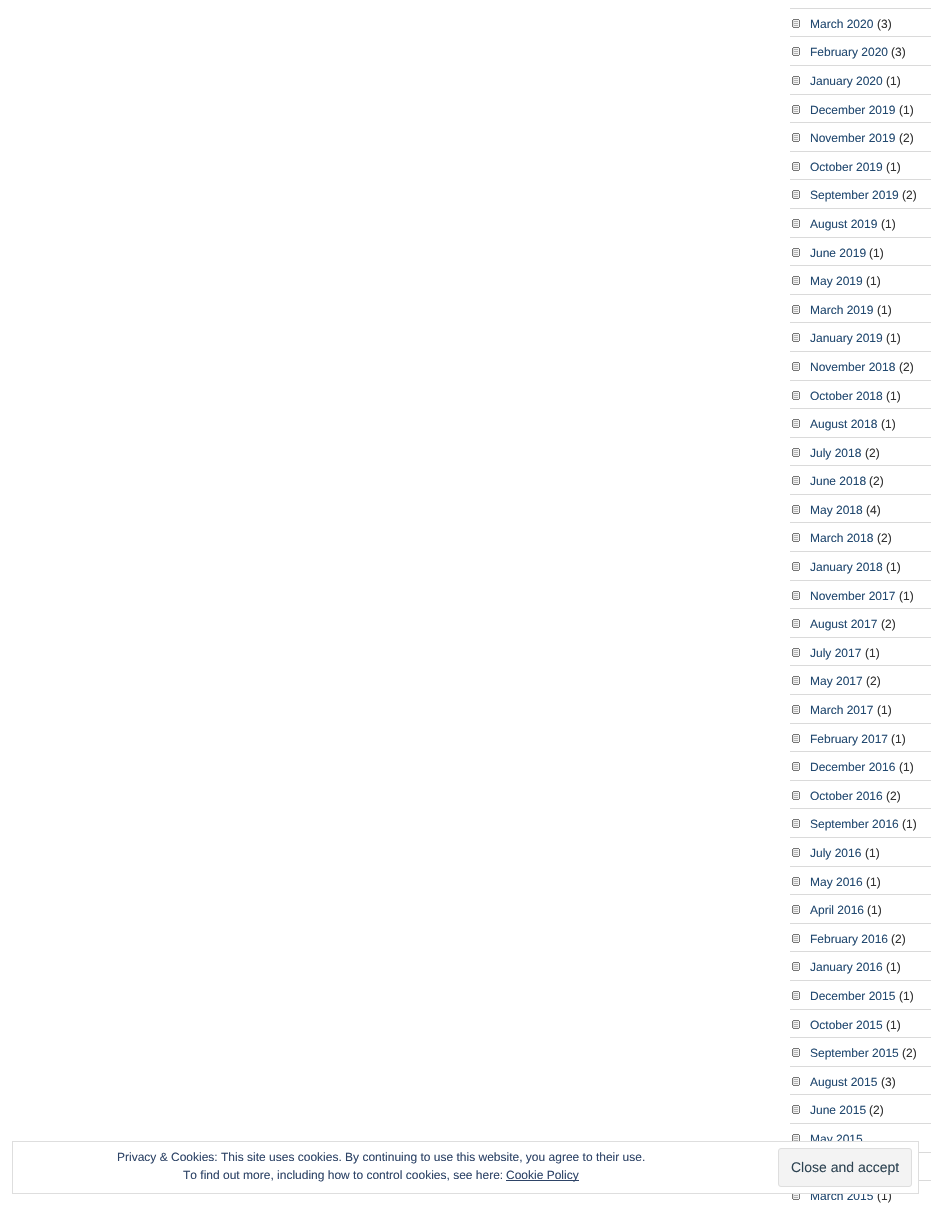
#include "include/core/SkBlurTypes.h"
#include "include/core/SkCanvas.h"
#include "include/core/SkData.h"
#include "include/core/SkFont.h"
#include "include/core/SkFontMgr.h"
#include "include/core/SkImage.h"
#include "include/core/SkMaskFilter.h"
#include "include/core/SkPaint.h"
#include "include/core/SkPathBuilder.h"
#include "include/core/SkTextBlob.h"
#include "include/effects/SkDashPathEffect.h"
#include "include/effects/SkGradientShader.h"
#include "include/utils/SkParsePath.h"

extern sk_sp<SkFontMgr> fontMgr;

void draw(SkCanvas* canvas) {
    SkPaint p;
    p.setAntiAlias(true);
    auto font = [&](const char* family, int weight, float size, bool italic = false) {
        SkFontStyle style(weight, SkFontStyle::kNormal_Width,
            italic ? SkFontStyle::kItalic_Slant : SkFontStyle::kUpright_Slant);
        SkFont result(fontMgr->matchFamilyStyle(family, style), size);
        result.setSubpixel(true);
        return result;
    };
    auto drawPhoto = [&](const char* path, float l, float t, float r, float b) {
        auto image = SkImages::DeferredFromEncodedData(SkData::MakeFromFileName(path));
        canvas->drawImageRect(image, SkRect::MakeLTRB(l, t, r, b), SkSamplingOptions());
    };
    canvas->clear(0xFFFFFFFF);
    p.setColor(0xFFDADADA);
    canvas->drawRect(SkRect::MakeLTRB(790, 8, 931, 9), p);
    drawPhoto("media/1.png", 792, 19, 800, 28);
    canvas->drawRect(SkRect::MakeLTRB(790, 36, 931, 37), p);
    auto font1 = font("Liberation Sans", 400, 12);
    p.setColor(0xFF224970);
    canvas->drawString("March 2020", 810, 28, font1, p);
    p.setColor(0xFF333333);
    canvas->drawString("(3)", 877, 28, font1, p);
    drawPhoto("media/1.png", 792, 47, 800, 56);
    p.setColor(0xFFDADADA);
    canvas->drawRect(SkRect::MakeLTRB(790, 65, 931, 66), p);
    p.setColor(0xFF224970);
    canvas->drawString("February 2020", 810, 56, font1, p);
    p.setColor(0xFF333333);
    canvas->drawString("(3)", 891, 56, font1, p);
    drawPhoto("media/1.png", 792, 76, 800, 85);
    p.setColor(0xFFDADADA);
    canvas->drawRect(SkRect::MakeLTRB(790, 94, 931, 95), p);
    p.setColor(0xFF224970);
    canvas->drawString("January 2020", 810, 85, font1, p);
    p.setColor(0xFF333333);
    canvas->drawString("(1)", 886, 85, font1, p);
    drawPhoto("media/1.png", 792, 105, 800, 114);
    p.setColor(0xFFDADADA);
    canvas->drawRect(SkRect::MakeLTRB(790, 122, 931, 123), p);
    p.setColor(0xFF224970);
    canvas->drawString("December 2019", 810, 114, font1, p);
    p.setColor(0xFF333333);
    canvas->drawString("(1)", 899, 114, font1, p);
    drawPhoto("media/1.png", 792, 133, 800, 142);
    p.setColor(0xFFDADADA);
    canvas->drawRect(SkRect::MakeLTRB(790, 151, 931, 152), p);
    p.setColor(0xFF224970);
    canvas->drawString("November 2019", 810, 142, font1, p);
    p.setColor(0xFF333333);
    canvas->drawString("(2)", 899, 142, font1, p);
    drawPhoto("media/1.png", 792, 162, 800, 171);
    p.setColor(0xFFDADADA);
    canvas->drawRect(SkRect::MakeLTRB(790, 179, 931, 180), p);
    p.setColor(0xFF224970);
    canvas->drawString("October 2019", 810, 171, font1, p);
    p.setColor(0xFF333333);
    canvas->drawString("(1)", 886, 171, font1, p);
    drawPhoto("media/1.png", 792, 190, 800, 199);
    p.setColor(0xFFDADADA);
    canvas->drawRect(SkRect::MakeLTRB(790, 208, 931, 209), p);
    p.setColor(0xFF224970);
    canvas->drawString("September 2019", 810, 199, font1, p);
    p.setColor(0xFF333333);
    canvas->drawString("(2)", 902, 199, font1, p);
    drawPhoto("media/1.png", 792, 219, 800, 228);
    p.setColor(0xFFDADADA);
    canvas->drawRect(SkRect::MakeLTRB(790, 237, 931, 238), p);
    p.setColor(0xFF224970);
    canvas->drawString("August 2019", 810, 228, font1, p);
    p.setColor(0xFF333333);
    canvas->drawString("(1)", 881, 228, font1, p);
    drawPhoto("media/1.png", 792, 248, 800, 257);
    p.setColor(0xFFDADADA);
    canvas->drawRect(SkRect::MakeLTRB(790, 265, 931, 266), p);
    p.setColor(0xFF224970);
    canvas->drawString("June 2019", 810, 257, font1, p);
    p.setColor(0xFF333333);
    canvas->drawString("(1)", 869, 257, font1, p);
    drawPhoto("media/1.png", 792, 276, 800, 285);
    p.setColor(0xFFDADADA);
    canvas->drawRect(SkRect::MakeLTRB(790, 294, 931, 295), p);
    p.setColor(0xFF224970);
    canvas->drawString("May 2019", 810, 285, font1, p);
    p.setColor(0xFF333333);
    canvas->drawString("(1)", 866, 285, font1, p);
    drawPhoto("media/1.png", 792, 305, 800, 314);
    p.setColor(0xFFDADADA);
    canvas->drawRect(SkRect::MakeLTRB(790, 322, 931, 323), p);
    p.setColor(0xFF224970);
    canvas->drawString("March 2019", 810, 314, font1, p);
    p.setColor(0xFF333333);
    canvas->drawString("(1)", 877, 314, font1, p);
    drawPhoto("media/1.png", 792, 333, 800, 342);
    p.setColor(0xFFDADADA);
    canvas->drawRect(SkRect::MakeLTRB(790, 351, 931, 352), p);
    p.setColor(0xFF224970);
    canvas->drawString("January 2019", 810, 342, font1, p);
    p.setColor(0xFF333333);
    canvas->drawString("(1)", 886, 342, font1, p);
    drawPhoto("media/1.png", 792, 362, 800, 371);
    p.setColor(0xFFDADADA);
    canvas->drawRect(SkRect::MakeLTRB(790, 380, 931, 381), p);
    p.setColor(0xFF224970);
    canvas->drawString("November 2018", 810, 371, font1, p);
    p.setColor(0xFF333333);
    canvas->drawString("(2)", 899, 371, font1, p);
    drawPhoto("media/1.png", 792, 391, 800, 400);
    p.setColor(0xFFDADADA);
    canvas->drawRect(SkRect::MakeLTRB(790, 408, 931, 409), p);
    p.setColor(0xFF224970);
    canvas->drawString("October 2018", 810, 400, font1, p);
    p.setColor(0xFF333333);
    canvas->drawString("(1)", 886, 400, font1, p);
    drawPhoto("media/1.png", 792, 419, 800, 428);
    p.setColor(0xFFDADADA);
    canvas->drawRect(SkRect::MakeLTRB(790, 437, 931, 438), p);
    p.setColor(0xFF224970);
    canvas->drawString("August 2018", 810, 428, font1, p);
    p.setColor(0xFF333333);
    canvas->drawString("(1)", 881, 428, font1, p);
    drawPhoto("media/1.png", 792, 448, 800, 457);
    p.setColor(0xFFDADADA);
    canvas->drawRect(SkRect::MakeLTRB(790, 465, 931, 466), p);
    p.setColor(0xFF224970);
    canvas->drawString("July 2018", 810, 457, font1, p);
    p.setColor(0xFF333333);
    canvas->drawString("(2)", 865, 457, font1, p);
    drawPhoto("media/1.png", 792, 476, 800, 485);
    p.setColor(0xFFDADADA);
    canvas->drawRect(SkRect::MakeLTRB(790, 494, 931, 495), p);
    p.setColor(0xFF224970);
    canvas->drawString("June 2018", 810, 485, font1, p);
    p.setColor(0xFF333333);
    canvas->drawString("(2)", 869, 485, font1, p);
    drawPhoto("media/1.png", 792, 505, 800, 514);
    p.setColor(0xFFDADADA);
    canvas->drawRect(SkRect::MakeLTRB(790, 522, 931, 523), p);
    p.setColor(0xFF224970);
    canvas->drawString("May 2018", 810, 514, font1, p);
    p.setColor(0xFF333333);
    canvas->drawString("(4)", 866, 514, font1, p);
    drawPhoto("media/1.png", 792, 533, 800, 542);
    p.setColor(0xFFDADADA);
    canvas->drawRect(SkRect::MakeLTRB(790, 551, 931, 552), p);
    p.setColor(0xFF224970);
    canvas->drawString("March 2018", 810, 542, font1, p);
    p.setColor(0xFF333333);
    canvas->drawString("(2)", 877, 542, font1, p);
    drawPhoto("media/1.png", 792, 562, 800, 571);
    p.setColor(0xFFDADADA);
    canvas->drawRect(SkRect::MakeLTRB(790, 580, 931, 581), p);
    p.setColor(0xFF224970);
    canvas->drawString("January 2018", 810, 571, font1, p);
    p.setColor(0xFF333333);
    canvas->drawString("(1)", 886, 571, font1, p);
    drawPhoto("media/1.png", 792, 591, 800, 600);
    p.setColor(0xFFDADADA);
    canvas->drawRect(SkRect::MakeLTRB(790, 608, 931, 609), p);
    p.setColor(0xFF224970);
    canvas->drawString("November 2017", 810, 600, font1, p);
    p.setColor(0xFF333333);
    canvas->drawString("(1)", 899, 600, font1, p);
    drawPhoto("media/1.png", 792, 619, 800, 628);
    p.setColor(0xFFDADADA);
    canvas->drawRect(SkRect::MakeLTRB(790, 637, 931, 638), p);
    p.setColor(0xFF224970);
    canvas->drawString("August 2017", 810, 628, font1, p);
    p.setColor(0xFF333333);
    canvas->drawString("(2)", 881, 628, font1, p);
    drawPhoto("media/1.png", 792, 648, 800, 657);
    p.setColor(0xFFDADADA);
    canvas->drawRect(SkRect::MakeLTRB(790, 665, 931, 666), p);
    p.setColor(0xFF224970);
    canvas->drawString("July 2017", 810, 657, font1, p);
    p.setColor(0xFF333333);
    canvas->drawString("(1)", 865, 657, font1, p);
    drawPhoto("media/1.png", 792, 676, 800, 685);
    p.setColor(0xFFDADADA);
    canvas->drawRect(SkRect::MakeLTRB(790, 694, 931, 695), p);
    p.setColor(0xFF224970);
    canvas->drawString("May 2017", 810, 685, font1, p);
    p.setColor(0xFF333333);
    canvas->drawString("(2)", 866, 685, font1, p);
    drawPhoto("media/1.png", 792, 705, 800, 714);
    p.setColor(0xFFDADADA);
    canvas->drawRect(SkRect::MakeLTRB(790, 723, 931, 724), p);
    p.setColor(0xFF224970);
    canvas->drawString("March 2017", 810, 714, font1, p);
    p.setColor(0xFF333333);
    canvas->drawString("(1)", 877, 714, font1, p);
    drawPhoto("media/1.png", 792, 734, 800, 743);
    p.setColor(0xFFDADADA);
    canvas->drawRect(SkRect::MakeLTRB(790, 751, 931, 752), p);
    p.setColor(0xFF224970);
    canvas->drawString("February 2017", 810, 743, font1, p);
    p.setColor(0xFF333333);
    canvas->drawString("(1)", 891, 743, font1, p);
    drawPhoto("media/1.png", 792, 762, 800, 771);
    p.setColor(0xFFDADADA);
    canvas->drawRect(SkRect::MakeLTRB(790, 780, 931, 781), p);
    p.setColor(0xFF224970);
    canvas->drawString("December 2016", 810, 771, font1, p);
    p.setColor(0xFF333333);
    canvas->drawString("(1)", 899, 771, font1, p);
    drawPhoto("media/1.png", 792, 791, 800, 800);
    p.setColor(0xFFDADADA);
    canvas->drawRect(SkRect::MakeLTRB(790, 808, 931, 809), p);
    p.setColor(0xFF224970);
    canvas->drawString("October 2016", 810, 800, font1, p);
    p.setColor(0xFF333333);
    canvas->drawString("(2)", 886, 800, font1, p);
    drawPhoto("media/1.png", 792, 819, 800, 828);
    p.setColor(0xFFDADADA);
    canvas->drawRect(SkRect::MakeLTRB(790, 837, 931, 838), p);
    p.setColor(0xFF224970);
    canvas->drawString("September 2016", 810, 828, font1, p);
    p.setColor(0xFF333333);
    canvas->drawString("(1)", 902, 828, font1, p);
    drawPhoto("media/1.png", 792, 848, 800, 857);
    p.setColor(0xFFDADADA);
    canvas->drawRect(SkRect::MakeLTRB(790, 866, 931, 867), p);
    p.setColor(0xFF224970);
    canvas->drawString("July 2016", 810, 857, font1, p);
    p.setColor(0xFF333333);
    canvas->drawString("(1)", 865, 857, font1, p);
    drawPhoto("media/1.png", 792, 877, 800, 886);
    p.setColor(0xFFDADADA);
    canvas->drawRect(SkRect::MakeLTRB(790, 894, 931, 895), p);
    p.setColor(0xFF224970);
    canvas->drawString("May 2016", 810, 886, font1, p);
    p.setColor(0xFF333333);
    canvas->drawString("(1)", 866, 886, font1, p);
    drawPhoto("media/1.png", 792, 905, 800, 914);
    p.setColor(0xFFDADADA);
    canvas->drawRect(SkRect::MakeLTRB(790, 923, 931, 924), p);
    p.setColor(0xFF224970);
    canvas->drawString("April 2016", 810, 914, font1, p);
    p.setColor(0xFF333333);
    canvas->drawString("(1)", 867, 914, font1, p);
    drawPhoto("media/1.png", 792, 934, 800, 943);
    p.setColor(0xFFDADADA);
    canvas->drawRect(SkRect::MakeLTRB(790, 951, 931, 952), p);
    p.setColor(0xFF224970);
    canvas->drawString("February 2016", 810, 943, font1, p);
    p.setColor(0xFF333333);
    canvas->drawString("(2)", 891, 943, font1, p);
    drawPhoto("media/1.png", 792, 962, 800, 971);
    p.setColor(0xFFDADADA);
    canvas->drawRect(SkRect::MakeLTRB(790, 980, 931, 981), p);
    p.setColor(0xFF224970);
    canvas->drawString("January 2016", 810, 971, font1, p);
    p.setColor(0xFF333333);
    canvas->drawString("(1)", 886, 971, font1, p);
    drawPhoto("media/1.png", 792, 991, 800, 1000);
    p.setColor(0xFFDADADA);
    canvas->drawRect(SkRect::MakeLTRB(790, 1009, 931, 1010), p);
    p.setColor(0xFF224970);
    canvas->drawString("December 2015", 810, 1000, font1, p);
    p.setColor(0xFF333333);
    canvas->drawString("(1)", 899, 1000, font1, p);
    drawPhoto("media/1.png", 792, 1020, 800, 1029);
    p.setColor(0xFFDADADA);
    canvas->drawRect(SkRect::MakeLTRB(790, 1037, 931, 1038), p);
    p.setColor(0xFF224970);
    canvas->drawString("October 2015", 810, 1029, font1, p);
    p.setColor(0xFF333333);
    canvas->drawString("(1)", 886, 1029, font1, p);
    drawPhoto("media/1.png", 792, 1048, 800, 1057);
    p.setColor(0xFFDADADA);
    canvas->drawRect(SkRect::MakeLTRB(790, 1066, 931, 1067), p);
    p.setColor(0xFF224970);
    canvas->drawString("September 2015", 810, 1057, font1, p);
    p.setColor(0xFF333333);
    canvas->drawString("(2)", 902, 1057, font1, p);
    drawPhoto("media/1.png", 792, 1077, 800, 1086);
    p.setColor(0xFFDADADA);
    canvas->drawRect(SkRect::MakeLTRB(790, 1094, 931, 1095), p);
    p.setColor(0xFF224970);
    canvas->drawString("August 2015", 810, 1086, font1, p);
    p.setColor(0xFF333333);
    canvas->drawString("(3)", 881, 1086, font1, p);
    drawPhoto("media/1.png", 792, 1105, 800, 1114);
    p.setColor(0xFFDADADA);
    canvas->drawRect(SkRect::MakeLTRB(790, 1123, 931, 1124), p);
    p.setColor(0xFF224970);
    canvas->drawString("June 2015", 810, 1114, font1, p);
    p.setColor(0xFF333333);
    canvas->drawString("(2)", 869, 1114, font1, p);
    drawPhoto("media/2.png", 792, 1134, 800, 1141);
    p.setColor(0xFFDADADA);
    canvas->drawRect(SkRect::MakeLTRB(919, 1152, 931, 1153), p);
    p.setColor(0xFF224970);
    canvas->drawString("May 2015", 810, 1143, font1, p);
    p.setColor(0xFFDADADA);
    canvas->drawRect(SkRect::MakeLTRB(919, 1180, 931, 1181), p);
    drawPhoto("media/3.png", 792, 1194, 800, 1200);
    p.setColor(0xFF224970);
    canvas->drawString("March 2015", 810, 1200, font1, p);
    p.setColor(0xFF333333);
    canvas->drawString("(1)", 877, 1200, font1, p);
    p.setColor(0xFFFFFFFF);
    canvas->drawRect(SkRect::MakeLTRB(810, 1142, 890, 1193), p);
    p.setStyle(SkPaint::kStroke_Style);
    p.setStrokeWidth(1);
    p.setColor(0xFFDEDEDE);
    canvas->drawRect(SkRect::MakeLTRB(12.5f, 1141.5f, 918.5f, 1193.5f), p);
    p.setStyle(SkPaint::kFill_Style);
    p.setColor(0xFF2E4467);
    canvas->drawString("Privacy & Cookies: This site uses cookies. By continuing to use this website, you agree to their use.", 117, 1161, font1, p);
    canvas->drawString("To find out more, including how to control cookies, see here:", 183, 1179, font1, p);
    canvas->drawRect(SkRect::MakeLTRB(506, 1180, 579, 1181), p);
    canvas->drawString("Cookie Policy", 506, 1179, font1, p);
    p.setColor(0xFFF3F3F3);
    canvas->drawRoundRect(SkRect::MakeLTRB(778.5f, 1148.5f, 911.5f, 1186.5f), 2.5f, 2.5f, p);
    p.setStyle(SkPaint::kStroke_Style);
    p.setColor(0xFFDEDEDE);
    canvas->drawRoundRect(SkRect::MakeLTRB(778.5f, 1148.5f, 911.5f, 1186.5f), 2.5f, 2.5f, p);
    auto font2 = font("Liberation Sans", 400, 14);
    p.setStyle(SkPaint::kFill_Style);
    p.setColor(0xFF2E4453);
    canvas->drawString("Close and accept", 791, 1172, font2, p);
}
